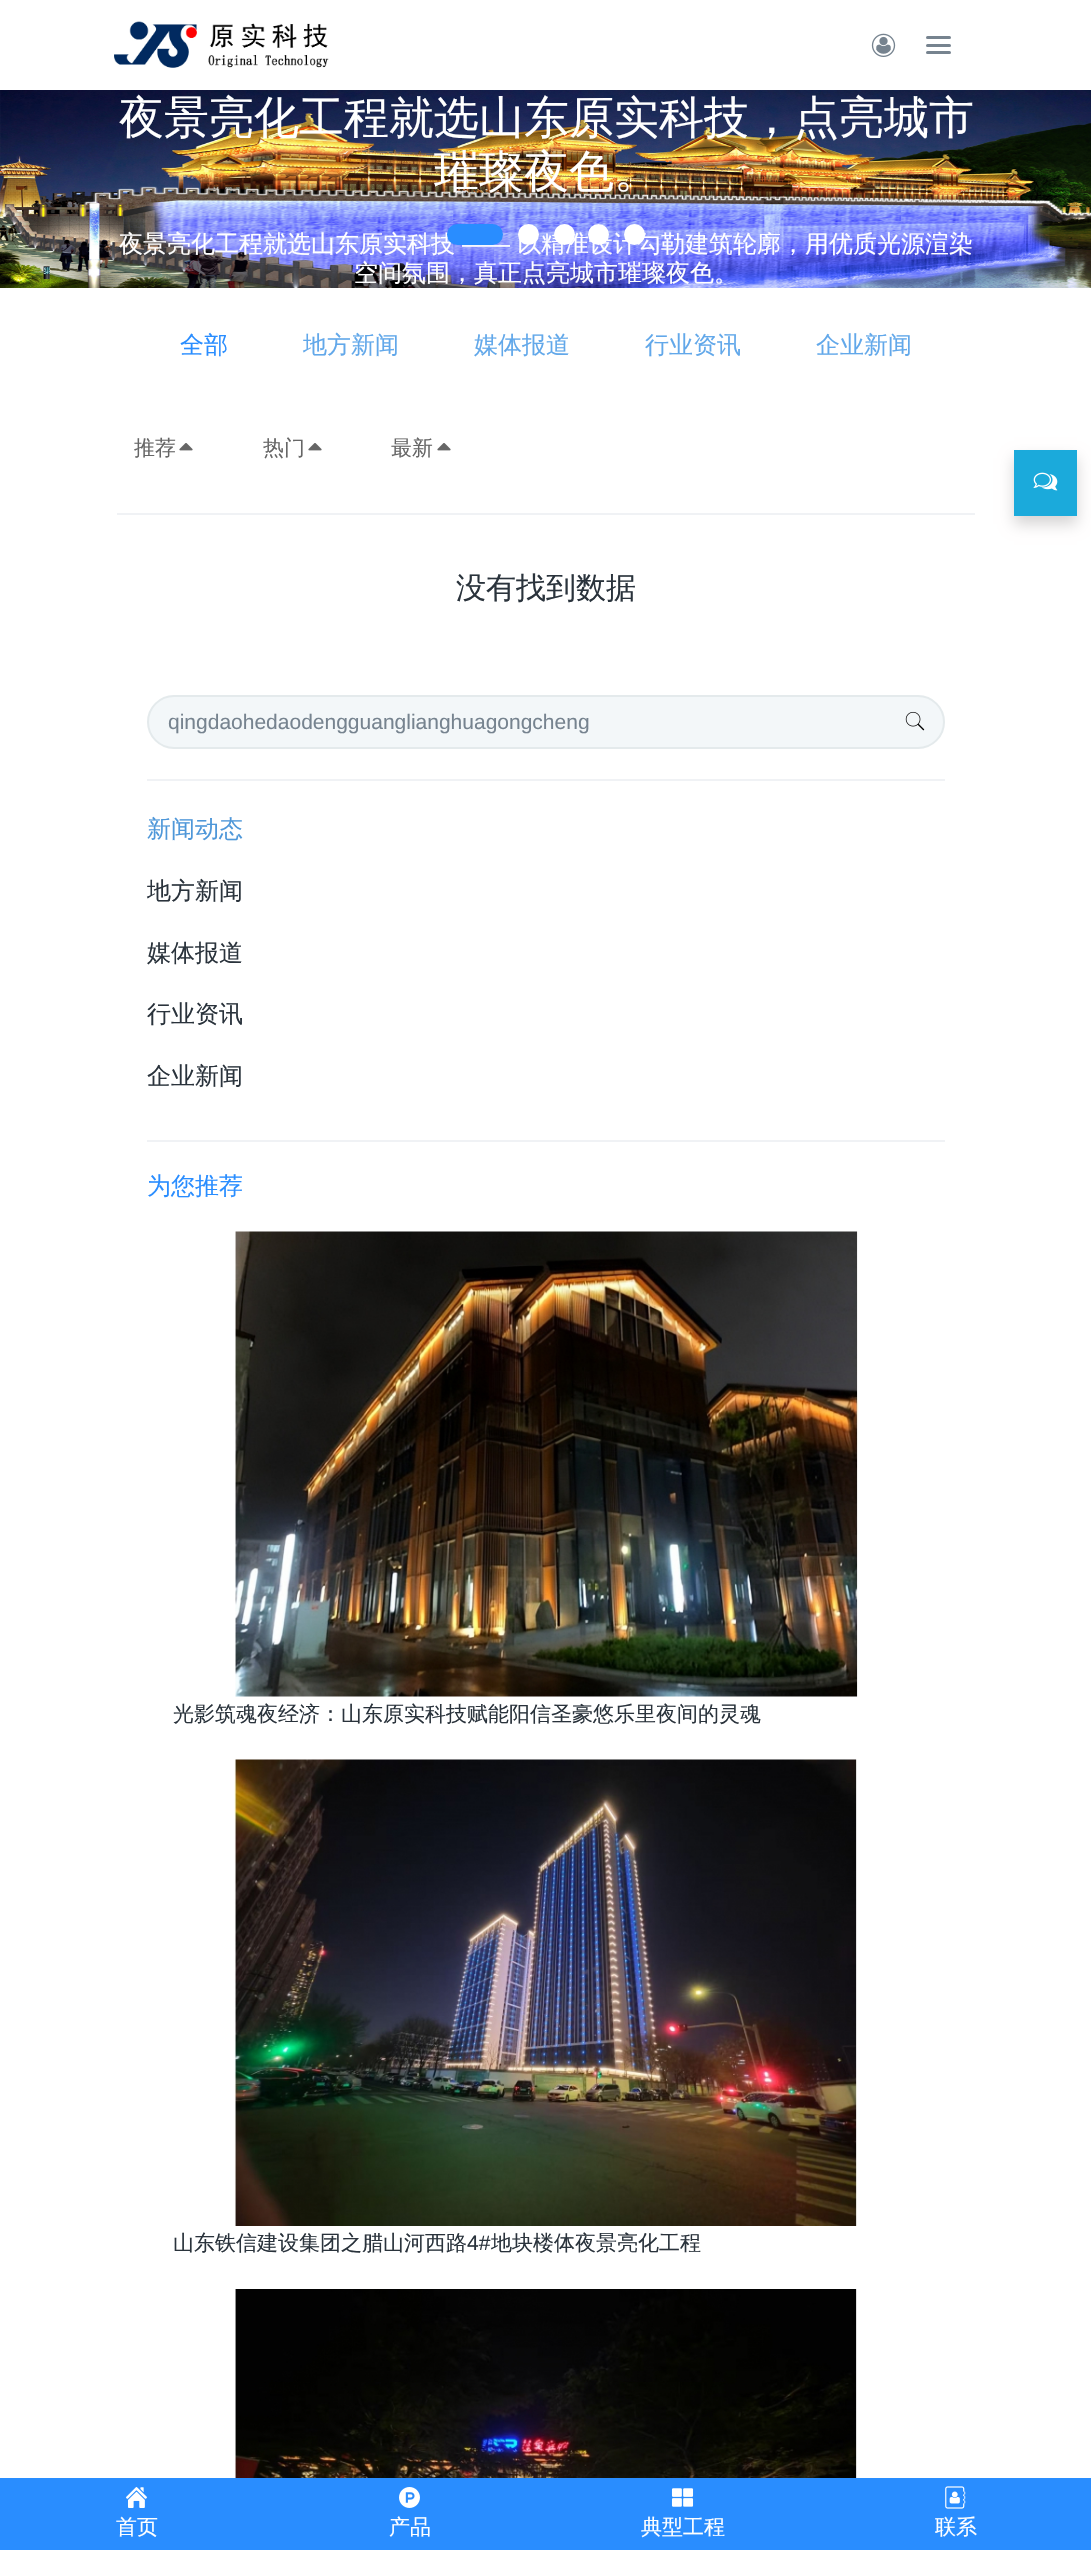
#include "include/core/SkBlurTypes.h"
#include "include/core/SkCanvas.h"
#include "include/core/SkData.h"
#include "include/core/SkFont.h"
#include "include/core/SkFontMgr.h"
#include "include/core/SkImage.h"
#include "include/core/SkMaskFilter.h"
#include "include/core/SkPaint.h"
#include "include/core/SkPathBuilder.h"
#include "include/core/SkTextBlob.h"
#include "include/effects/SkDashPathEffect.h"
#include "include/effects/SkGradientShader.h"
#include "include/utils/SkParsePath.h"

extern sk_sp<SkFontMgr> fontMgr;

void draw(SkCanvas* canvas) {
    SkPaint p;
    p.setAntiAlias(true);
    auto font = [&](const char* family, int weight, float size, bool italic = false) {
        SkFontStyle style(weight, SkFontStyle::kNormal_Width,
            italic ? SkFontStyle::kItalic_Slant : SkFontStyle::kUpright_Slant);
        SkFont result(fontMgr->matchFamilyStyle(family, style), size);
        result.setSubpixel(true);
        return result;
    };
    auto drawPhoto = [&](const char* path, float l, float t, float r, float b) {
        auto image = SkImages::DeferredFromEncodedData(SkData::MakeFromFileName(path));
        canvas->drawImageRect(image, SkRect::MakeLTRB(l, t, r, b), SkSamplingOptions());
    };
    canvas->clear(0xFFFFFFFF);
    drawPhoto("media/1.png", 114, 21, 329, 68);
    drawPhoto("media/2.png", 871, 33, 896, 57);
    p.setColor(0xFF76838F);
    canvas->drawRoundRect(SkRect::MakeLTRB(926, 36, 951, 39), 1.5f, 1.5f, p);
    canvas->drawRoundRect(SkRect::MakeLTRB(926, 44, 951, 47), 1.5f, 1.5f, p);
    canvas->drawRoundRect(SkRect::MakeLTRB(926, 51, 951, 54), 1.5f, 1.5f, p);
    drawPhoto("media/3.png", 0, 90, 1091, 288);
    auto font1 = font("WenQuanYi Zen Hei", 500, 45);
    p.setColor(0xFFFFFFFF);
    canvas->drawString("夜景亮化工程就选山东原实科技，点亮城市", 119, 133, font1, p);
    canvas->drawString("璀璨夜色。", 434, 187, font1, p);
    auto font2 = font("WenQuanYi Zen Hei", 500, 24);
    canvas->drawString("夜景亮化工程就选山东原实科技", 119, 252, font2, p);
    auto font3 = font("Liberation Sans", 400, 24);
    canvas->drawString("——", 462, 252, font3, p);
    canvas->drawString("以精准设计勾勒建筑轮廓，用优质光源渲染", 517, 252, font2, p);
    canvas->drawString("空间氛围，真正点亮城市璀璨夜色。", 354, 281, font2, p);
    auto font4 = font("Liberation Serif", 400, 45);
    p.setColor(0xFFAB7027);
    canvas->drawString(">", 1007, 204, font4, p);
    p.setColor(0xFF298DFF);
    canvas->drawRoundRect(SkRect::MakeLTRB(447, 224, 503, 245), 10.5f, 10.5f, p);
    p.setColor(0xFFFFFFFF);
    canvas->drawCircle(528.5f, 234.5f, 10.5f, p);
    canvas->drawCircle(564.5f, 234.5f, 10.5f, p);
    canvas->drawCircle(598.5f, 234.5f, 10.5f, p);
    canvas->drawCircle(634.5f, 234.5f, 10.5f, p);
    p.setColor(0xFF298DFF);
    canvas->drawString("全部", 180, 353, font2, p);
    p.setColor(0xFF62A8EA);
    {
        const struct { const char* s; float x, y; } items[] = {
            {"地方新闻", 303, 353},
            {"媒体报道", 474, 353},
            {"行业资讯", 645, 353},
            {"企业新闻", 816, 353},
        };
        for (auto [s, x, y] : items) {
            canvas->drawString(s, x, y, font2, p);
        }
    }
    auto font5 = font("WenQuanYi Zen Hei", 500, 21);
    p.setColor(0xFF666666);
    canvas->drawString("推荐", 134, 455, font5, p);
    drawPhoto("media/4.png", 179, 443, 193, 451);
    canvas->drawString("热门", 263, 455, font5, p);
    drawPhoto("media/4.png", 308, 443, 322, 451);
    canvas->drawString("最新", 391, 455, font5, p);
    drawPhoto("media/4.png", 437, 443, 451, 451);
    p.setColor(0xFFF0F2F5);
    canvas->drawRect(SkRect::MakeLTRB(117, 513, 975, 515), p);
    auto font6 = font("WenQuanYi Zen Hei", 500, 30);
    p.setColor(0xFF2A333C);
    canvas->drawString("没有找到数据", 456, 598, font6, p);
    p.setColor(0xFFF3F7F9);
    canvas->drawRoundRect(SkRect::MakeLTRB(148, 696, 944, 748), 26, 26, p);
    p.setStyle(SkPaint::kStroke_Style);
    p.setStrokeWidth(2);
    p.setColor(0xFFE4EAEC);
    canvas->drawRoundRect(SkRect::MakeLTRB(148, 696, 944, 748), 26, 26, p);
    auto font7 = font("Liberation Sans", 400, 21);
    p.setStyle(SkPaint::kFill_Style);
    p.setColor(0xFF76838F);
    canvas->drawString("qingdaohedaodengguanglianghuagongcheng", 168, 729, font7, p);
    drawPhoto("media/5.png", 905, 711, 925, 731);
    p.setColor(0xFFF0F2F5);
    canvas->drawRect(SkRect::MakeLTRB(147, 779, 945, 781), p);
    p.setColor(0xFF4E97D9);
    canvas->drawString("新闻动态", 147, 837, font2, p);
    p.setColor(0xFF2A333C);
    {
        const struct { const char* s; float x, y; } items[] = {
            {"地方新闻", 147, 899},
            {"媒体报道", 147, 961},
            {"行业资讯", 147, 1022},
            {"企业新闻", 147, 1084},
        };
        for (auto [s, x, y] : items) {
            canvas->drawString(s, x, y, font2, p);
        }
    }
    p.setColor(0xFFF0F2F5);
    canvas->drawRect(SkRect::MakeLTRB(147, 1140, 945, 1142), p);
    p.setColor(0xFF298DFF);
    canvas->drawString("为您推荐", 147, 1194, font2, p);
    drawPhoto("media/6.png", 235, 1231, 859, 1697);
    p.setColor(0xFF2A333C);
    canvas->drawString("光影筑魂夜经济：山东原实科技赋能阳信圣豪悠乐里夜间的灵魂", 173, 1721, font5, p);
    drawPhoto("media/7.png", 234, 1759, 857, 2226);
    canvas->drawString("山东铁信建设集团之腊山河西路", 173, 2250, font5, p);
    canvas->drawString("4#", 467, 2250, font7, p);
    canvas->drawString("地块楼体夜景亮化工程", 491, 2250, font5, p);
    drawPhoto("media/8.png", 234, 2289, 857, 2478);
    p.setColor(0xFF298DFF);
    canvas->drawRect(SkRect::MakeLTRB(0, 2478, 1091, 2550), p);
    drawPhoto("media/9.png", 126, 2487, 147, 2508);
    p.setColor(0xFFFFFFFF);
    canvas->drawString("首页", 116, 2534, font5, p);
    drawPhoto("media/10.png", 399, 2487, 420, 2508);
    canvas->drawString("产品", 389, 2534, font5, p);
    drawPhoto("media/11.png", 671, 2488, 694, 2507);
    canvas->drawString("典型工程", 641, 2534, font5, p);
    drawPhoto("media/12.png", 945, 2486, 966, 2509);
    canvas->drawString("联系", 935, 2534, font5, p);
    p.setColor(0x2B040000);
    p.setMaskFilter(SkMaskFilter::MakeBlur(kNormal_SkBlurStyle, 7));
    canvas->drawRect(SkRect::MakeLTRB(1014, 458, 1077, 524), p);
    p.setMaskFilter(nullptr);
    p.setStyle(SkPaint::kStroke_Style);
    p.setStrokeWidth(3);
    p.setColor(0xFF1BAADB);
    canvas->drawRect(SkRect::MakeLTRB(1015.5f, 451.5f, 1075.5f, 514.5f), p);
    p.setStyle(SkPaint::kFill_Style);
    canvas->drawRect(SkRect::MakeLTRB(1017, 453, 1074, 513), p);
    drawPhoto("media/13.png", 1033, 472, 1058, 491);
}
